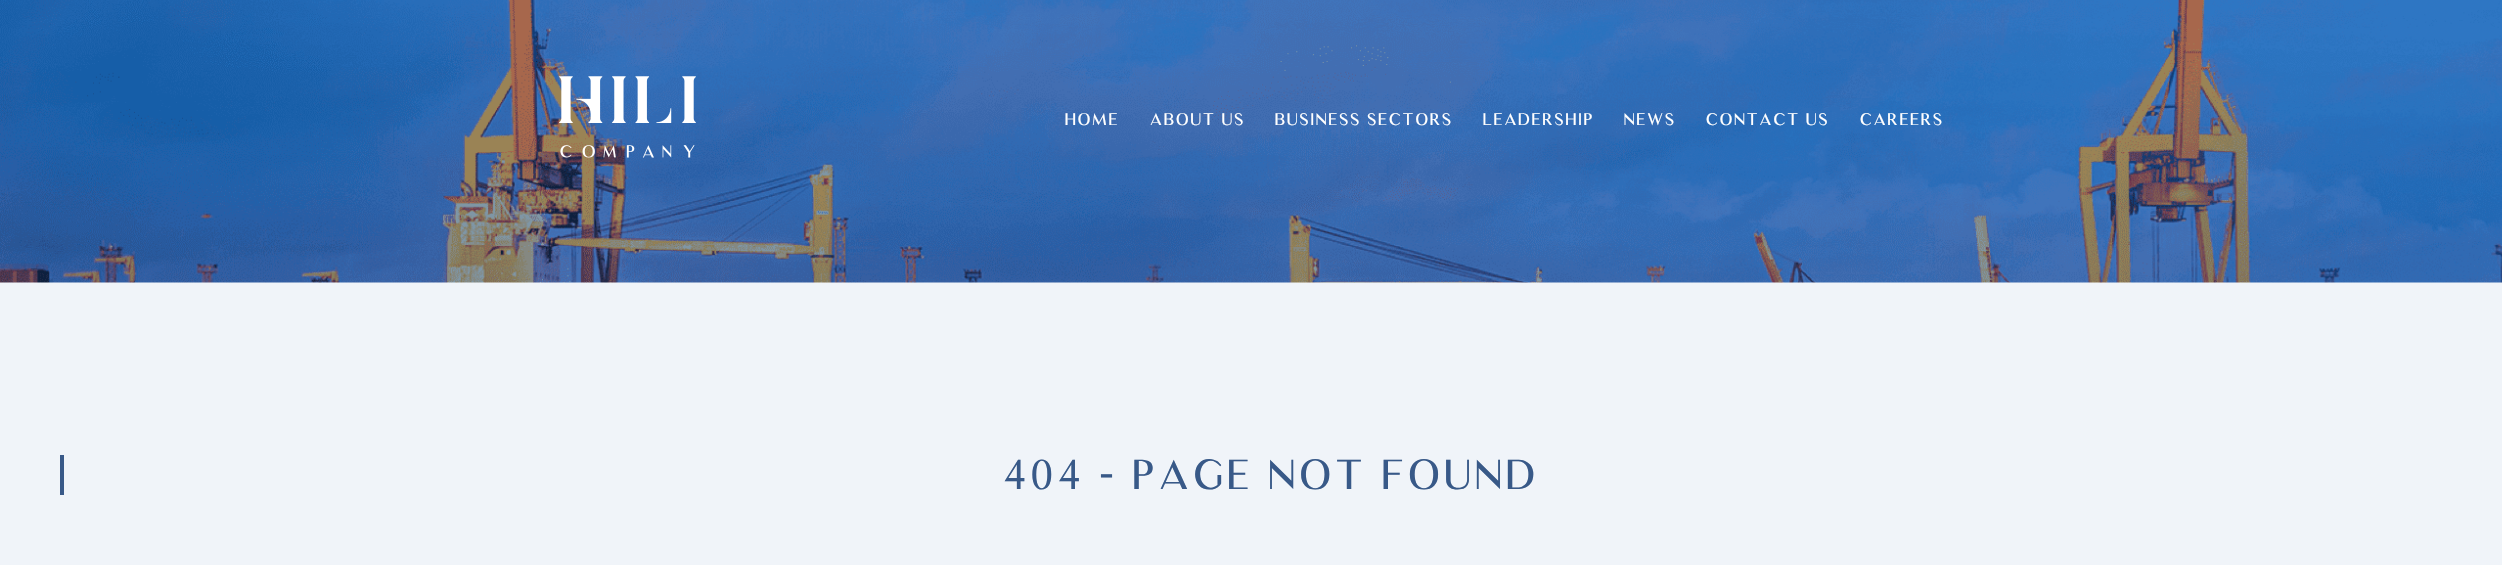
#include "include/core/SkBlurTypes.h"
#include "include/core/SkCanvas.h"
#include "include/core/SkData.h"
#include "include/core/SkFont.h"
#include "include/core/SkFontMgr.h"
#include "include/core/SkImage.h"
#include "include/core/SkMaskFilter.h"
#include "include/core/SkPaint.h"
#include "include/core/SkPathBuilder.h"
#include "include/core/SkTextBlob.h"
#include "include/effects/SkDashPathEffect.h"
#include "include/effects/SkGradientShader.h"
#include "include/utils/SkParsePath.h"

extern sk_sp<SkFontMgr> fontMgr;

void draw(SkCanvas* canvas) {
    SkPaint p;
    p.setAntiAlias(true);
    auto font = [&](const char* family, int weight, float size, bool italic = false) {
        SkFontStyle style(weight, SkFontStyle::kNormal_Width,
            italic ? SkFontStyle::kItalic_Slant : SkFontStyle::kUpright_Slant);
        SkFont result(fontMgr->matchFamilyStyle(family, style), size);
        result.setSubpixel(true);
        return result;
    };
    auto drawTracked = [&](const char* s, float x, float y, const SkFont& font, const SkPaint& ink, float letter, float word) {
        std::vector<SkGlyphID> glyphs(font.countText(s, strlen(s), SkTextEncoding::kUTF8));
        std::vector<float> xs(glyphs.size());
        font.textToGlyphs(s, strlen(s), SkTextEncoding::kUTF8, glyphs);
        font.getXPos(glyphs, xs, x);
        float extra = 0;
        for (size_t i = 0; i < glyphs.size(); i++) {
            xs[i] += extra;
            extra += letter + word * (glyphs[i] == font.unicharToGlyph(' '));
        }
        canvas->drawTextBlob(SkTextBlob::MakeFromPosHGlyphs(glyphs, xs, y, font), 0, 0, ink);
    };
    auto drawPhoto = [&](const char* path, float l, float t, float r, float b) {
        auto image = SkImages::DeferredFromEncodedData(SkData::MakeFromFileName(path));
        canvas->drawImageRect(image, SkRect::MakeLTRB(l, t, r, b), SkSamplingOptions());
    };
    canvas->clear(0xFFF0F4F9);
    drawPhoto("media/2.png", 0, 0, 2502, 283);
    drawPhoto("media/1.png", 559, 76, 696, 158);
    auto font1 = font("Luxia", 400, 16);
    p.setColor(0xFFFFFFFF);
    {
        const struct { const char* s; float x, y; } items[] = {
            {"HOME", 1065, 125},
            {"ABOUT US", 1150, 125},
            {"BUSINESS SECTORS", 1275, 125},
            {"LEADERSHIP", 1483, 125},
            {"NEWS", 1624, 125},
            {"CONTACT US", 1706, 125},
            {"CAREERS", 1860, 125},
        };
        for (auto [s, x, y] : items) {
            drawTracked(s, x, y, font1, p, 2, 0);
        }
    }
    p.setColor(0xFF385988);
    canvas->drawRect(SkRect::MakeLTRB(60, 455, 64, 495), p);
    auto font2 = font("Luxia", 400, 40);
    drawTracked("404 - PAGE NOT FOUND", 1003, 489, font2, p, 4.7f, 0);
}
